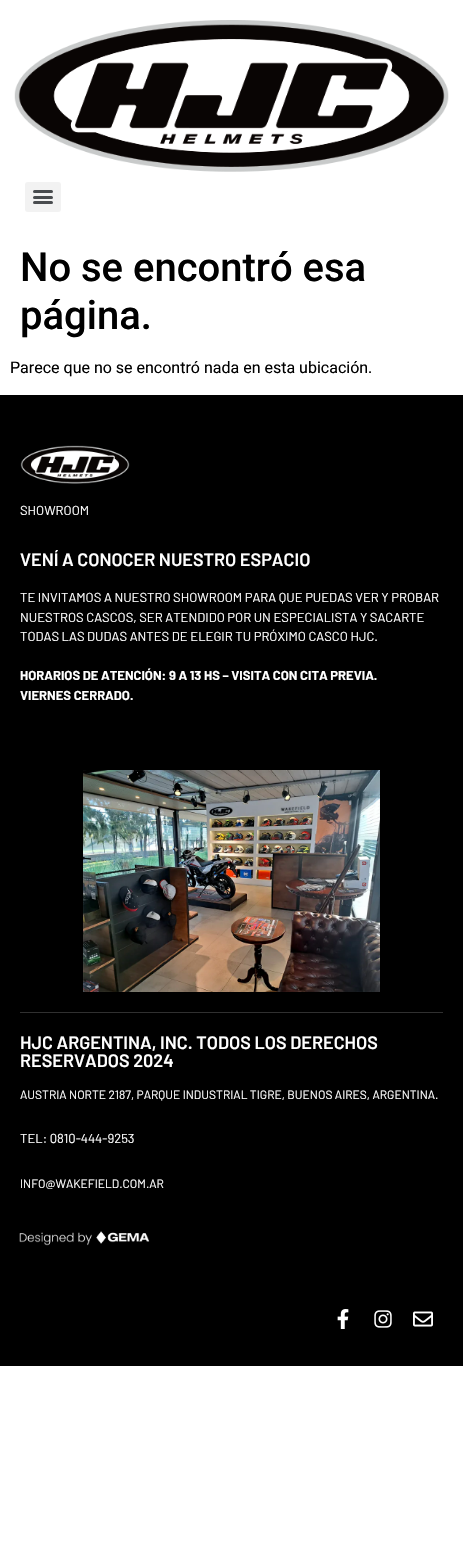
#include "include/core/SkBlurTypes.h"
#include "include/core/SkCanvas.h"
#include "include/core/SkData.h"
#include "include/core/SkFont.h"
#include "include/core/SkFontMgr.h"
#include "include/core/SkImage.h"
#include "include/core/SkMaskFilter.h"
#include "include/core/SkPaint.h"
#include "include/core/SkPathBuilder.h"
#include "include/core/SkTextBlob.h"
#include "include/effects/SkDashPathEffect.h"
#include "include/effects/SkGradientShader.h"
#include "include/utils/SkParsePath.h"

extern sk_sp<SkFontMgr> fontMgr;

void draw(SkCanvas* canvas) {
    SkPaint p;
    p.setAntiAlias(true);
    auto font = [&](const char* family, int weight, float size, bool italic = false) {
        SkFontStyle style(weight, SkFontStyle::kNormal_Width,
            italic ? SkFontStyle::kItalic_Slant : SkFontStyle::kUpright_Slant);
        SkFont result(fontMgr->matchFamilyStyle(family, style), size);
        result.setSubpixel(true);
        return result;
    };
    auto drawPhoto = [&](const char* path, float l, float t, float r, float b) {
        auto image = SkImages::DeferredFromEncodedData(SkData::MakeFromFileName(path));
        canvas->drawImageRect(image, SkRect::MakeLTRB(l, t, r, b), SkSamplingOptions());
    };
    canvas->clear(0xFFFFFFFF);
    drawPhoto("media/1.png", 14, 20, 449, 172);
    p.setColor(0xFFF2F2F2);
    canvas->drawRoundRect(SkRect::MakeLTRB(25, 182, 61, 212), 3, 3, p);
    p.setColor(0xFF494C4F);
    canvas->drawRoundRect(SkRect::MakeLTRB(33, 196, 53, 199), 1.5f, 1.5f, p);
    canvas->drawRoundRect(SkRect::MakeLTRB(33, 190, 53, 193), 1.5f, 1.5f, p);
    canvas->drawRoundRect(SkRect::MakeLTRB(33, 201, 53, 204), 1.5f, 1.5f, p);
    auto font1 = font("Roboto", 500, 40);
    p.setColor(0xFF000000);
    canvas->drawString("No se encontró esa", 20, 281, font1, p);
    canvas->drawString("página.", 20, 329, font1, p);
    auto font2 = font("Roboto", 400, 16);
    canvas->drawString("Parece que no se encontró nada en esta ubicación.", 10, 373, font2, p);
    canvas->drawRect(SkRect::MakeLTRB(0, 395, 463, 1366), p);
    drawPhoto("media/2.png", 20, 445, 130, 484);
    auto font3 = font("Barlow", 400, 13);
    p.setColor(0xFFFFFFFF);
    canvas->drawString("SHOWROOM", 20, 515, font3, p);
    auto font4 = font("Barlow", 600, 18);
    canvas->drawString("VENÍ A CONOCER NUESTRO ESPACIO", 20, 566, font4, p);
    {
        const struct { const char* s; float x, y; } items[] = {
            {"TE INVITAMOS A NUESTRO SHOWROOM PARA QUE PUEDAS VER Y PROBAR", 20, 602},
            {"NUESTROS CASCOS, SER ATENDIDO POR UN ESPECIALISTA Y SACARTE", 20, 622},
            {"TODAS LAS DUDAS ANTES DE ELEGIR TU PRÓXIMO CASCO HJC.", 20, 641},
        };
        for (auto [s, x, y] : items) {
            canvas->drawString(s, x, y, font3, p);
        }
    }
    auto font5 = font("Barlow", 700, 13);
    canvas->drawString("HORARIOS DE ATENCIÓN: 9 A 13 HS – VISITA CON CITA PREVIA.", 20, 680, font5, p);
    canvas->drawString("VIERNES CERRADO.", 20, 700, font5, p);
    drawPhoto("media/3.png", 83, 770, 380, 992);
    p.setColor(0xFF303030);
    canvas->drawRect(SkRect::MakeLTRB(20, 1012, 443, 1013), p);
    p.setColor(0xFFFFFFFF);
    canvas->drawString("HJC ARGENTINA, INC. TODOS LOS DERECHOS", 20, 1049, font4, p);
    canvas->drawString("RESERVADOS 2024", 20, 1067, font4, p);
    auto font6 = font("Barlow", 400, 12);
    canvas->drawString("AUSTRIA NORTE 2187, PARQUE INDUSTRIAL TIGRE, BUENOS AIRES, ARGENTINA.", 20, 1099, font6, p);
    canvas->drawString("TEL: 0810-444-9253", 20, 1143, font3, p);
    canvas->drawString("INFO@WAKEFIELD.COM.AR", 20, 1188, font6, p);
    drawPhoto("media/4.png", 19, 1231, 150, 1246);
    drawPhoto("media/5.png", 337, 1309, 349, 1329);
    drawPhoto("media/6.png", 374, 1310, 392, 1328);
    drawPhoto("media/7.png", 413, 1311, 433, 1327);
}
